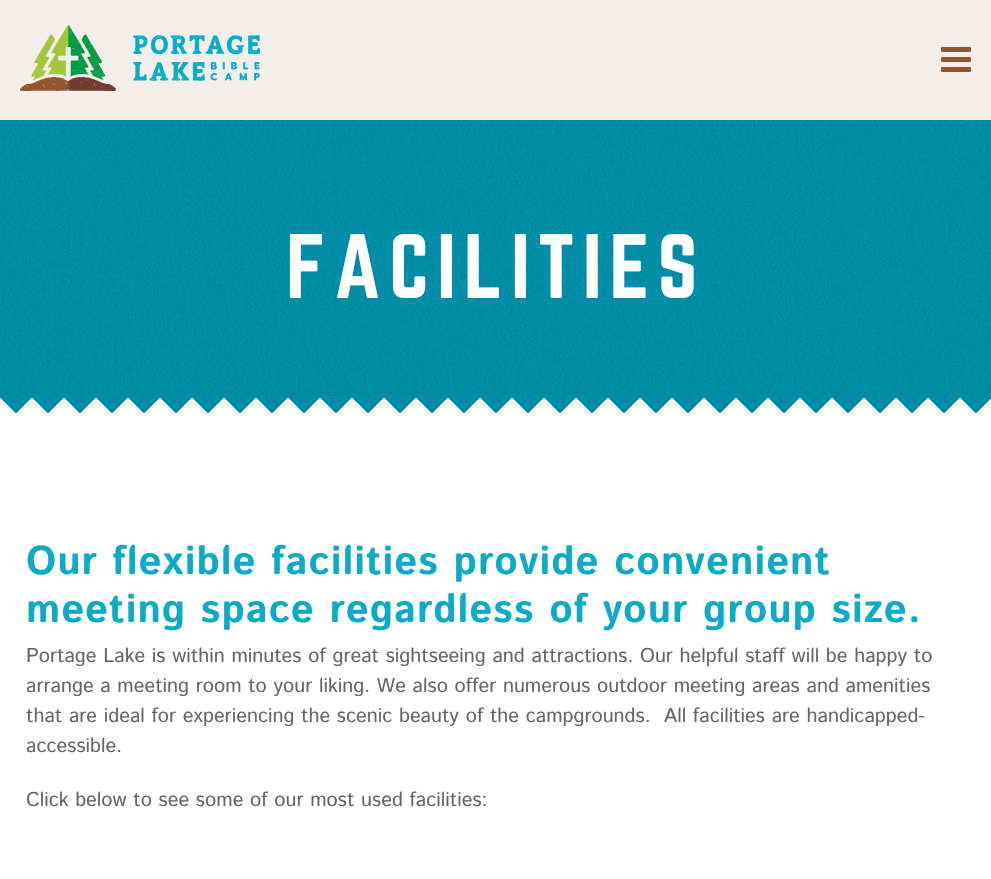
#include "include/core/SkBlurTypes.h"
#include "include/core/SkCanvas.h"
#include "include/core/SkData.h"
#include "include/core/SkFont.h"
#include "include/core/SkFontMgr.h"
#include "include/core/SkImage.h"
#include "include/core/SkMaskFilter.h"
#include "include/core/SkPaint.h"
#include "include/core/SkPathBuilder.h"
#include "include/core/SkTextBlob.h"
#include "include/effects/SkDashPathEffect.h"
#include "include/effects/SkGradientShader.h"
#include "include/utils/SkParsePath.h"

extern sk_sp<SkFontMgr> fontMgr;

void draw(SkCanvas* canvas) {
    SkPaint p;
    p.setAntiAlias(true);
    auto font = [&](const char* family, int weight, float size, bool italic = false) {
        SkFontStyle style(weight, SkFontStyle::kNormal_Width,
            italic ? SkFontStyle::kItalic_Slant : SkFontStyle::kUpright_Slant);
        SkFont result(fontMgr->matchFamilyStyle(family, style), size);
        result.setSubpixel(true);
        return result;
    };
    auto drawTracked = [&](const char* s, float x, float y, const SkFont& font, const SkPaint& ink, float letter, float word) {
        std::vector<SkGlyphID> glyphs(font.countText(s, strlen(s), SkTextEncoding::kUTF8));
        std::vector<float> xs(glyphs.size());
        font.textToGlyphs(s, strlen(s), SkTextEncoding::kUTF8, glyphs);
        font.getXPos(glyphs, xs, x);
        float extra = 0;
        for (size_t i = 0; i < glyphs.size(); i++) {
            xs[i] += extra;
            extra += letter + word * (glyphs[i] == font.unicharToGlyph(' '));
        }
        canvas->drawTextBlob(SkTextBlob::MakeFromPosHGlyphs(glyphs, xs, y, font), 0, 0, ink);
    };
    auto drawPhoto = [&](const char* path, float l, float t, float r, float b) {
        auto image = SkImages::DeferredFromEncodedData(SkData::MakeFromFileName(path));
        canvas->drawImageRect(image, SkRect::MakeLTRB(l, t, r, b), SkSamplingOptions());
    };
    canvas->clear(0xFFFFFFFF);
    p.setColor(0xFFF4EEEA);
    canvas->drawRect(SkRect::MakeLTRB(0, 0, 991, 120), p);
    drawPhoto("media/1.png", 20, 25, 260, 91);
    drawPhoto("media/2.png", 941, 47, 971, 72);
    drawPhoto("media/3.png", 0, 120, 991, 413);
    auto font1 = font("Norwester", 400, 80);
    p.setColor(0xFFFFFFFF);
    drawTracked("FACILITIES", 286, 298, font1, p, 8, 0);
    drawPhoto("media/4.png", 0, 398, 976, 420);
    drawPhoto("media/5.png", 16, 398, 991, 420);
    auto font2 = font("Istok", 700, 40);
    p.setColor(0xFF0AAAC8);
    drawTracked("Our flexible facilities provide convenient", 26, 574, font2, p, 1, 0);
    drawTracked("meeting space regardless of your group size.", 26, 622, font2, p, 1, 0);
    auto font3 = font("Istok", 400, 20);
    p.setColor(0xFF666666);
    {
        const struct { const char* s; float x, y; } items[] = {
            {"Portage Lake is within minutes of great sightseeing and attractions. Our helpful staff will be happy to", 26, 662},
            {"arrange a meeting room to your liking. We also offer numerous outdoor meeting areas and amenities", 26, 692},
            {"that are ideal for experiencing the scenic beauty of the campgrounds.  All facilities are handicapped-", 26, 722},
            {"accessible.", 26, 752},
            {"Click below to see some of our most used facilities:", 26, 806},
        };
        for (auto [s, x, y] : items) {
            canvas->drawString(s, x, y, font3, p);
        }
    }
}
